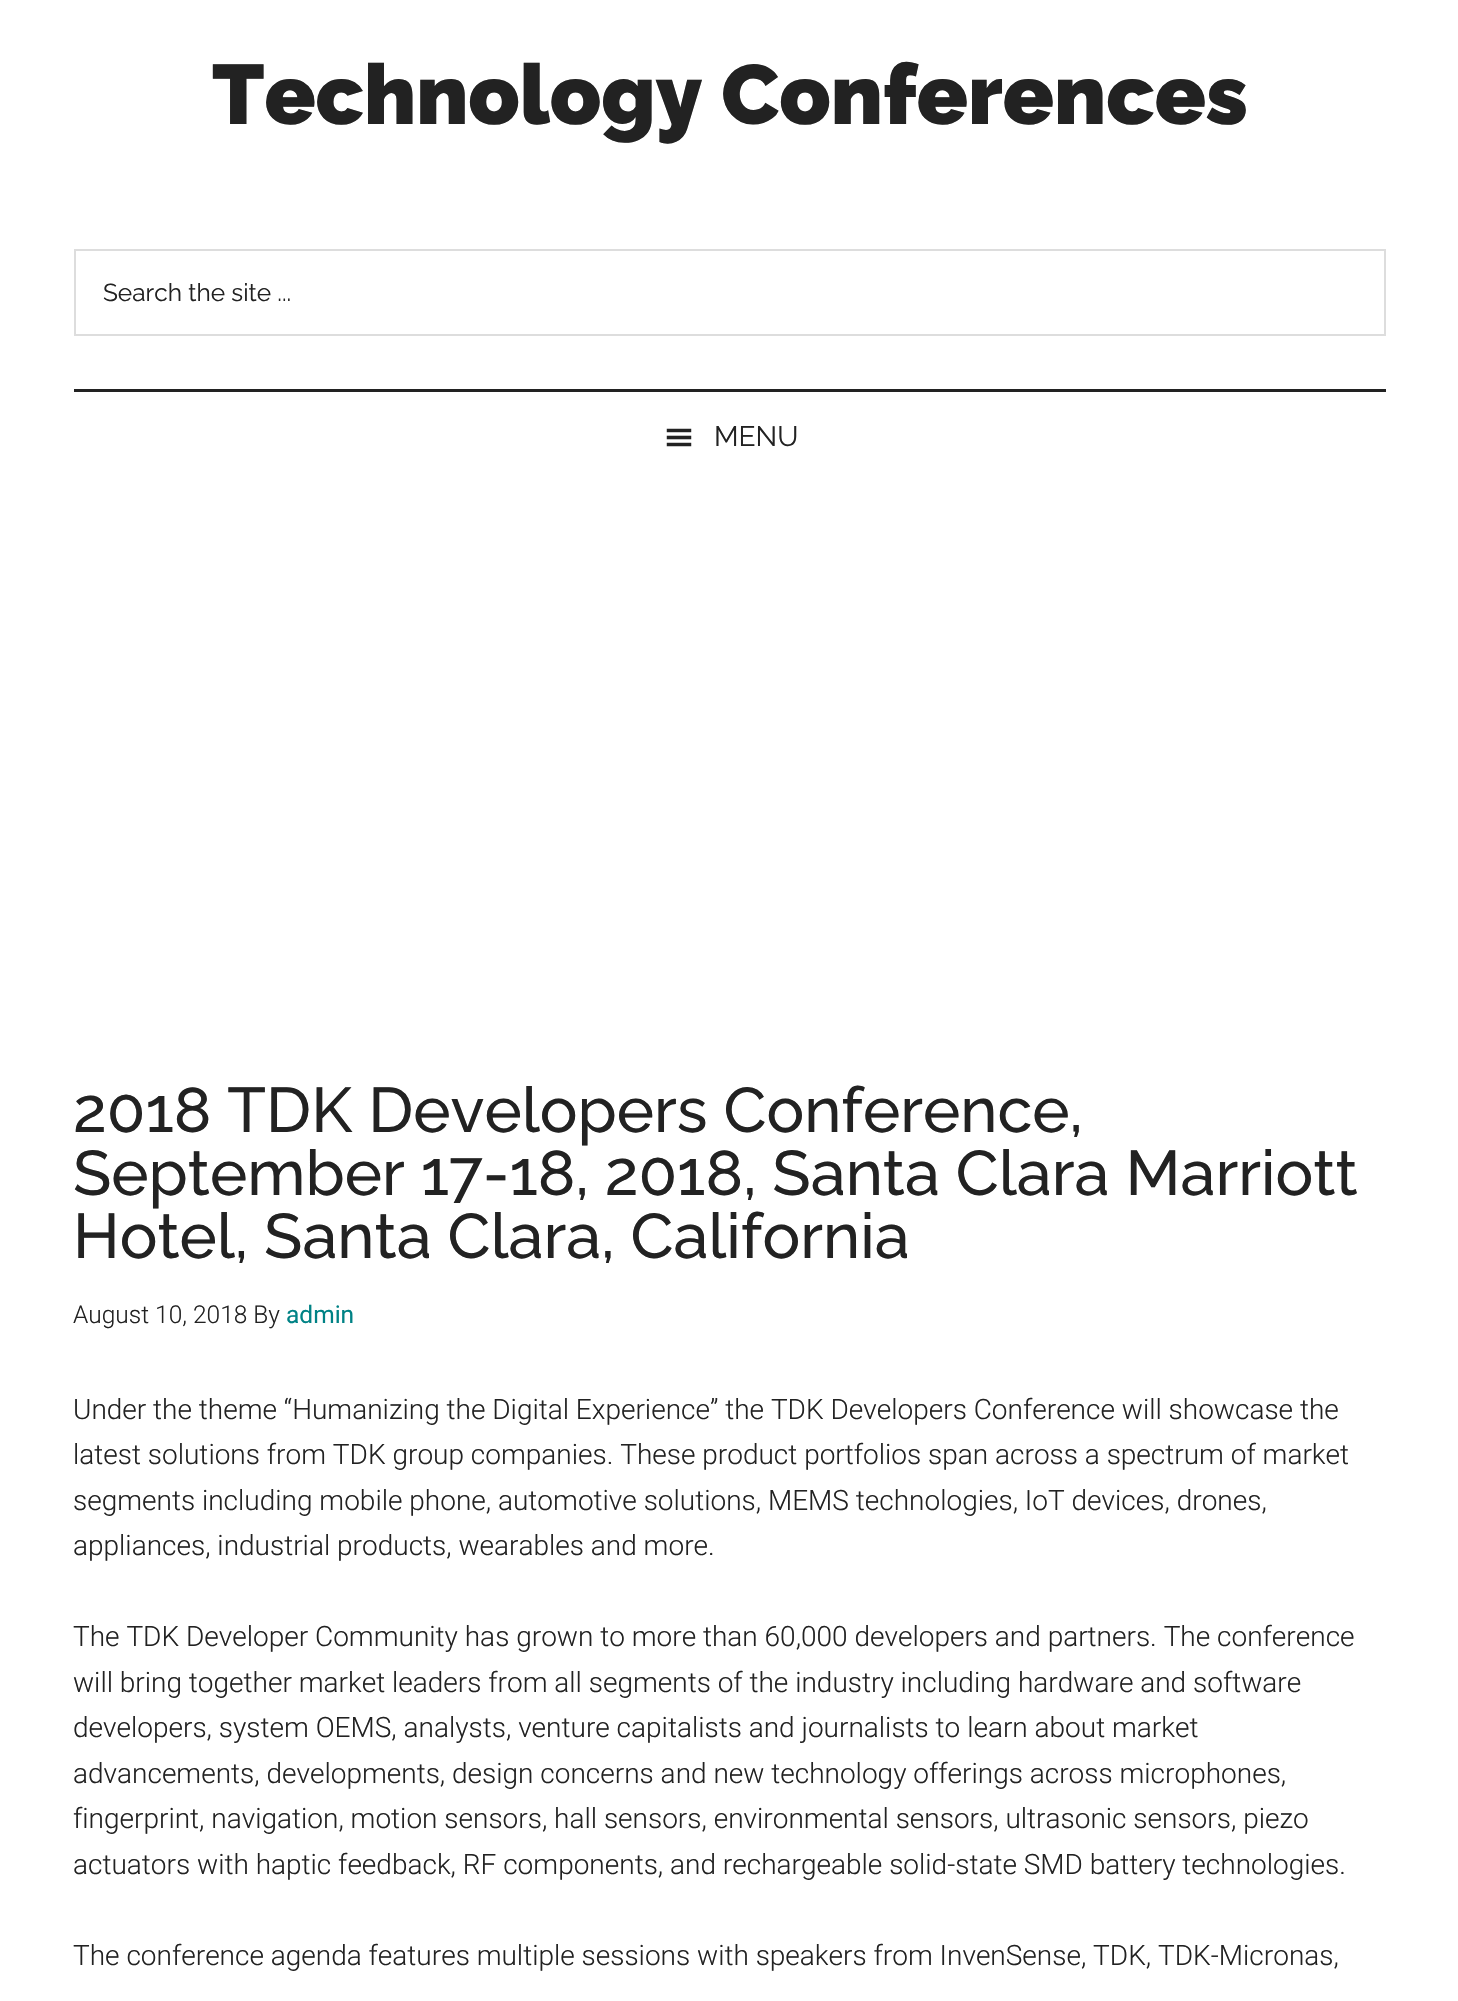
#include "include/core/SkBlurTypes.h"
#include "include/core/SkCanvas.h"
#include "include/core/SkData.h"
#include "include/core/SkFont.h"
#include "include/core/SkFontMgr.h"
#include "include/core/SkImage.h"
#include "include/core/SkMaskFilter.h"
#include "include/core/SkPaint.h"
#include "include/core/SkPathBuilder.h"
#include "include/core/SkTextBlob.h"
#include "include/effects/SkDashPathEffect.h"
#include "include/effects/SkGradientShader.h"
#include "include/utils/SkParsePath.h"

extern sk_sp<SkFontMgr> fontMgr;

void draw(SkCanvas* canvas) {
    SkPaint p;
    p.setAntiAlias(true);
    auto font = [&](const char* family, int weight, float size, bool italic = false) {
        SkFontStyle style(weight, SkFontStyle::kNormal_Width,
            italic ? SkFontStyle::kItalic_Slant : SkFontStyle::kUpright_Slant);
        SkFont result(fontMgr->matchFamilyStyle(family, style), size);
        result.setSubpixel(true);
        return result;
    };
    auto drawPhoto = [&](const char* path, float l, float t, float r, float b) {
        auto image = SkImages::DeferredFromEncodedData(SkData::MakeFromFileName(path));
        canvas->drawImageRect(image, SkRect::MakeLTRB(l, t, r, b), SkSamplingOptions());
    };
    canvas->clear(0xFFFFFFFF);
    p.setColor(0xFF222222);
    canvas->drawRect(SkRect::MakeLTRB(74, 389, 1386, 392), p);
    auto font1 = font("Raleway", 900, 84);
    canvas->drawString("Technology Conferences", 212, 124, font1, p);
    p.setStyle(SkPaint::kStroke_Style);
    p.setStrokeWidth(2);
    p.setColor(0xFFDDDDDD);
    canvas->drawRect(SkRect::MakeLTRB(75, 250, 1385, 335), p);
    auto font2 = font("Raleway", 400, 24.5f);
    p.setStyle(SkPaint::kFill_Style);
    p.setColor(0xFF222222);
    canvas->drawString("Search the site ...", 103, 301, font2, p);
    drawPhoto("media/1.png", 666, 428, 692, 447);
    auto font3 = font("Raleway", 400, 28);
    canvas->drawString("MENU", 714, 446, font3, p);
    auto font4 = font("Raleway", 500, 63);
    {
        const struct { const char* s; float x, y; } items[] = {
            {"2018 TDK Developers Conference,", 73, 1132},
            {"September 17-18, 2018, Santa Clara Marriott", 73, 1195},
            {"Hotel, Santa Clara, California", 73, 1258},
        };
        for (auto [s, x, y] : items) {
            canvas->drawString(s, x, y, font4, p);
        }
    }
    auto font5 = font("Roboto", 300, 24.5f);
    canvas->drawString("August 10, 2018 By", 73, 1323, font5, p);
    auto font6 = font("Roboto", 400, 24.5f);
    p.setColor(0xFF008285);
    canvas->drawString("admin", 286, 1323, font6, p);
    auto font7 = font("Roboto", 300, 28);
    p.setColor(0xFF222222);
    {
        const struct { const char* s; float x, y; } items[] = {
            {"Under the theme “Humanizing the Digital Experience” the TDK Developers Conference will showcase the", 73, 1419},
            {"latest solutions from TDK group companies. These product portfolios span across a spectrum of market", 73, 1464},
            {"segments including mobile phone, automotive solutions, MEMS technologies, IoT devices, drones,", 73, 1510},
            {"appliances, industrial products, wearables and more.", 73, 1555},
            {"The TDK Developer Community has grown to more than 60,000 developers and partners. The conference", 73, 1646},
            {"will bring together market leaders from all segments of the industry including hardware and software", 73, 1692},
            {"developers, system OEMS, analysts, venture capitalists and journalists to learn about market", 73, 1737},
            {"advancements, developments, design concerns and new technology offerings across microphones,", 73, 1783},
            {"fingerprint, navigation, motion sensors, hall sensors, environmental sensors, ultrasonic sensors, piezo", 73, 1828},
            {"actuators with haptic feedback, RF components, and rechargeable solid-state SMD battery technologies.", 73, 1874},
            {"The conference agenda features multiple sessions with speakers from InvenSense, TDK, TDK-Micronas,", 73, 1965},
        };
        for (auto [s, x, y] : items) {
            canvas->drawString(s, x, y, font7, p);
        }
    }
}
